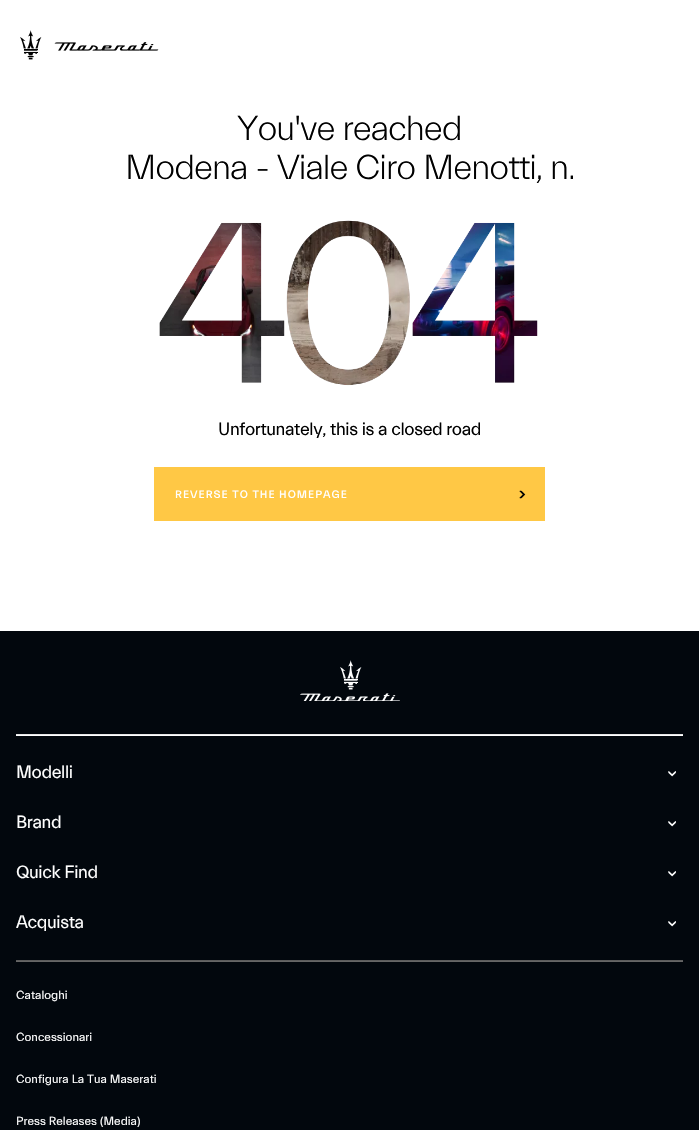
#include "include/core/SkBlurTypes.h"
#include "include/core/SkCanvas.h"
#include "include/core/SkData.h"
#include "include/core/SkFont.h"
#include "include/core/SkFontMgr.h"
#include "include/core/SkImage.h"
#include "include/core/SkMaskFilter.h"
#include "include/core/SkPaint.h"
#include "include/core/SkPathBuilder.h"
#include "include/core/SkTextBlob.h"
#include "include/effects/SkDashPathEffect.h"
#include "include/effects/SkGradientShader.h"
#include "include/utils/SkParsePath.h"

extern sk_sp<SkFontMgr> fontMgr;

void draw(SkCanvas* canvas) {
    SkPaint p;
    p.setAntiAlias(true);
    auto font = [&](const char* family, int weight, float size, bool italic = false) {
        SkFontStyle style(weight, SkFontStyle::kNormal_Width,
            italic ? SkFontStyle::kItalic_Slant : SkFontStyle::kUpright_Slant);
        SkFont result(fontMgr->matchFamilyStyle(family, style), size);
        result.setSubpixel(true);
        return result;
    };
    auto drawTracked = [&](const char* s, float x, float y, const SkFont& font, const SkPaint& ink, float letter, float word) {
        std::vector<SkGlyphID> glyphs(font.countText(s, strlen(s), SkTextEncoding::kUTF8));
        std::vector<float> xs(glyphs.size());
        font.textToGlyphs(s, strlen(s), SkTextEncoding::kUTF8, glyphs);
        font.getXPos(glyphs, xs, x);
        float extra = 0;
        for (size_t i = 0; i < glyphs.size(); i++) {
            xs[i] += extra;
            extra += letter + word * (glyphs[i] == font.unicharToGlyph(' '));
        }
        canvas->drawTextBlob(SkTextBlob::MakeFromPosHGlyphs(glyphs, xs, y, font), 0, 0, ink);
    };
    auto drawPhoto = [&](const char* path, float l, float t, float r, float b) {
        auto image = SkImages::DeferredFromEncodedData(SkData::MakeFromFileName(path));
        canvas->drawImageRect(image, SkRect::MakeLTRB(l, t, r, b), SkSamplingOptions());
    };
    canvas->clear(0xFFFFFFFF);
    drawPhoto("media/1.png", 20, 30, 159, 60);
    auto font1 = font("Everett", 300, 35);
    p.setColor(0xFF000000);
    drawTracked("You've reached", 237, 140, font1, p, -1, 0);
    drawTracked("Modena - Viale Ciro Menotti, n.", 125, 179, font1, p, -1, 0);
    drawPhoto("media/2.png", 159, 220, 538, 386);
    auto font2 = font("Everett", 400, 18);
    drawTracked("Unfortunately, this is a closed road", 218, 435, font2, p, -0.4f, 0);
    p.setColor(0xFFFFC845);
    canvas->drawRect(SkRect::MakeLTRB(154, 467, 545, 521), p);
    auto font3 = font("Everett", 500, 11);
    {
        const SkColor colors[] = {0xFF000000, 0xFFFFFFFF};
        const float stops[] = {0.5f, 0.5f};
        const SkPoint ends[] = {{546, 508}, {153, 481}};
        p.setShader(SkGradientShader::MakeLinear(ends, colors, stops, 2, SkTileMode::kClamp));
        p.setAlpha(255);
    }
    drawTracked("REVERSE TO THE HOMEPAGE", 175, 498, font3, p, 1, 0);
    drawPhoto("media/3.png", 519, 490, 526, 499);
    p.setShader(nullptr);
    p.setColor(0xFF02070D);
    canvas->drawRect(SkRect::MakeLTRB(0, 631, 699, 1130), p);
    drawPhoto("media/4.png", 300, 660, 400, 701);
    p.setColor(0xFFFFFFFF);
    canvas->drawRect(SkRect::MakeLTRB(16, 735, 683, 736), p);
    p.setColor(0xFFE6E6E6);
    canvas->drawRect(SkRect::MakeLTRB(16, 734, 683, 735), p);
    p.setColor(0xFFFFFFFF);
    drawTracked("Modelli", 16, 778, font2, p, -0.4f, 0);
    drawPhoto("media/5.png", 668, 771, 676, 777);
    drawTracked("Brand", 16, 828, font2, p, -0.4f, 0);
    drawPhoto("media/5.png", 668, 821, 676, 827);
    drawTracked("Quick Find", 16, 878, font2, p, -0.4f, 0);
    drawPhoto("media/5.png", 668, 871, 676, 877);
    drawTracked("Acquista", 16, 928, font2, p, -0.4f, 0);
    drawPhoto("media/5.png", 668, 921, 676, 927);
    p.setColor(0xFF666666);
    canvas->drawRect(SkRect::MakeLTRB(16, 961, 683, 962), p);
    p.setColor(0xFF5C5C5C);
    canvas->drawRect(SkRect::MakeLTRB(16, 960, 683, 961), p);
    auto font4 = font("Everett", 400, 12);
    p.setColor(0xFFFFFFFF);
    {
        const struct { const char* s; float x, y; } items[] = {
            {"Cataloghi", 16, 999},
            {"Concessionari", 16, 1041},
            {"Configura La Tua Maserati", 16, 1083},
            {"Press Releases (Media)", 16, 1125},
        };
        for (auto [s, x, y] : items) {
            canvas->drawString(s, x, y, font4, p);
        }
    }
}
